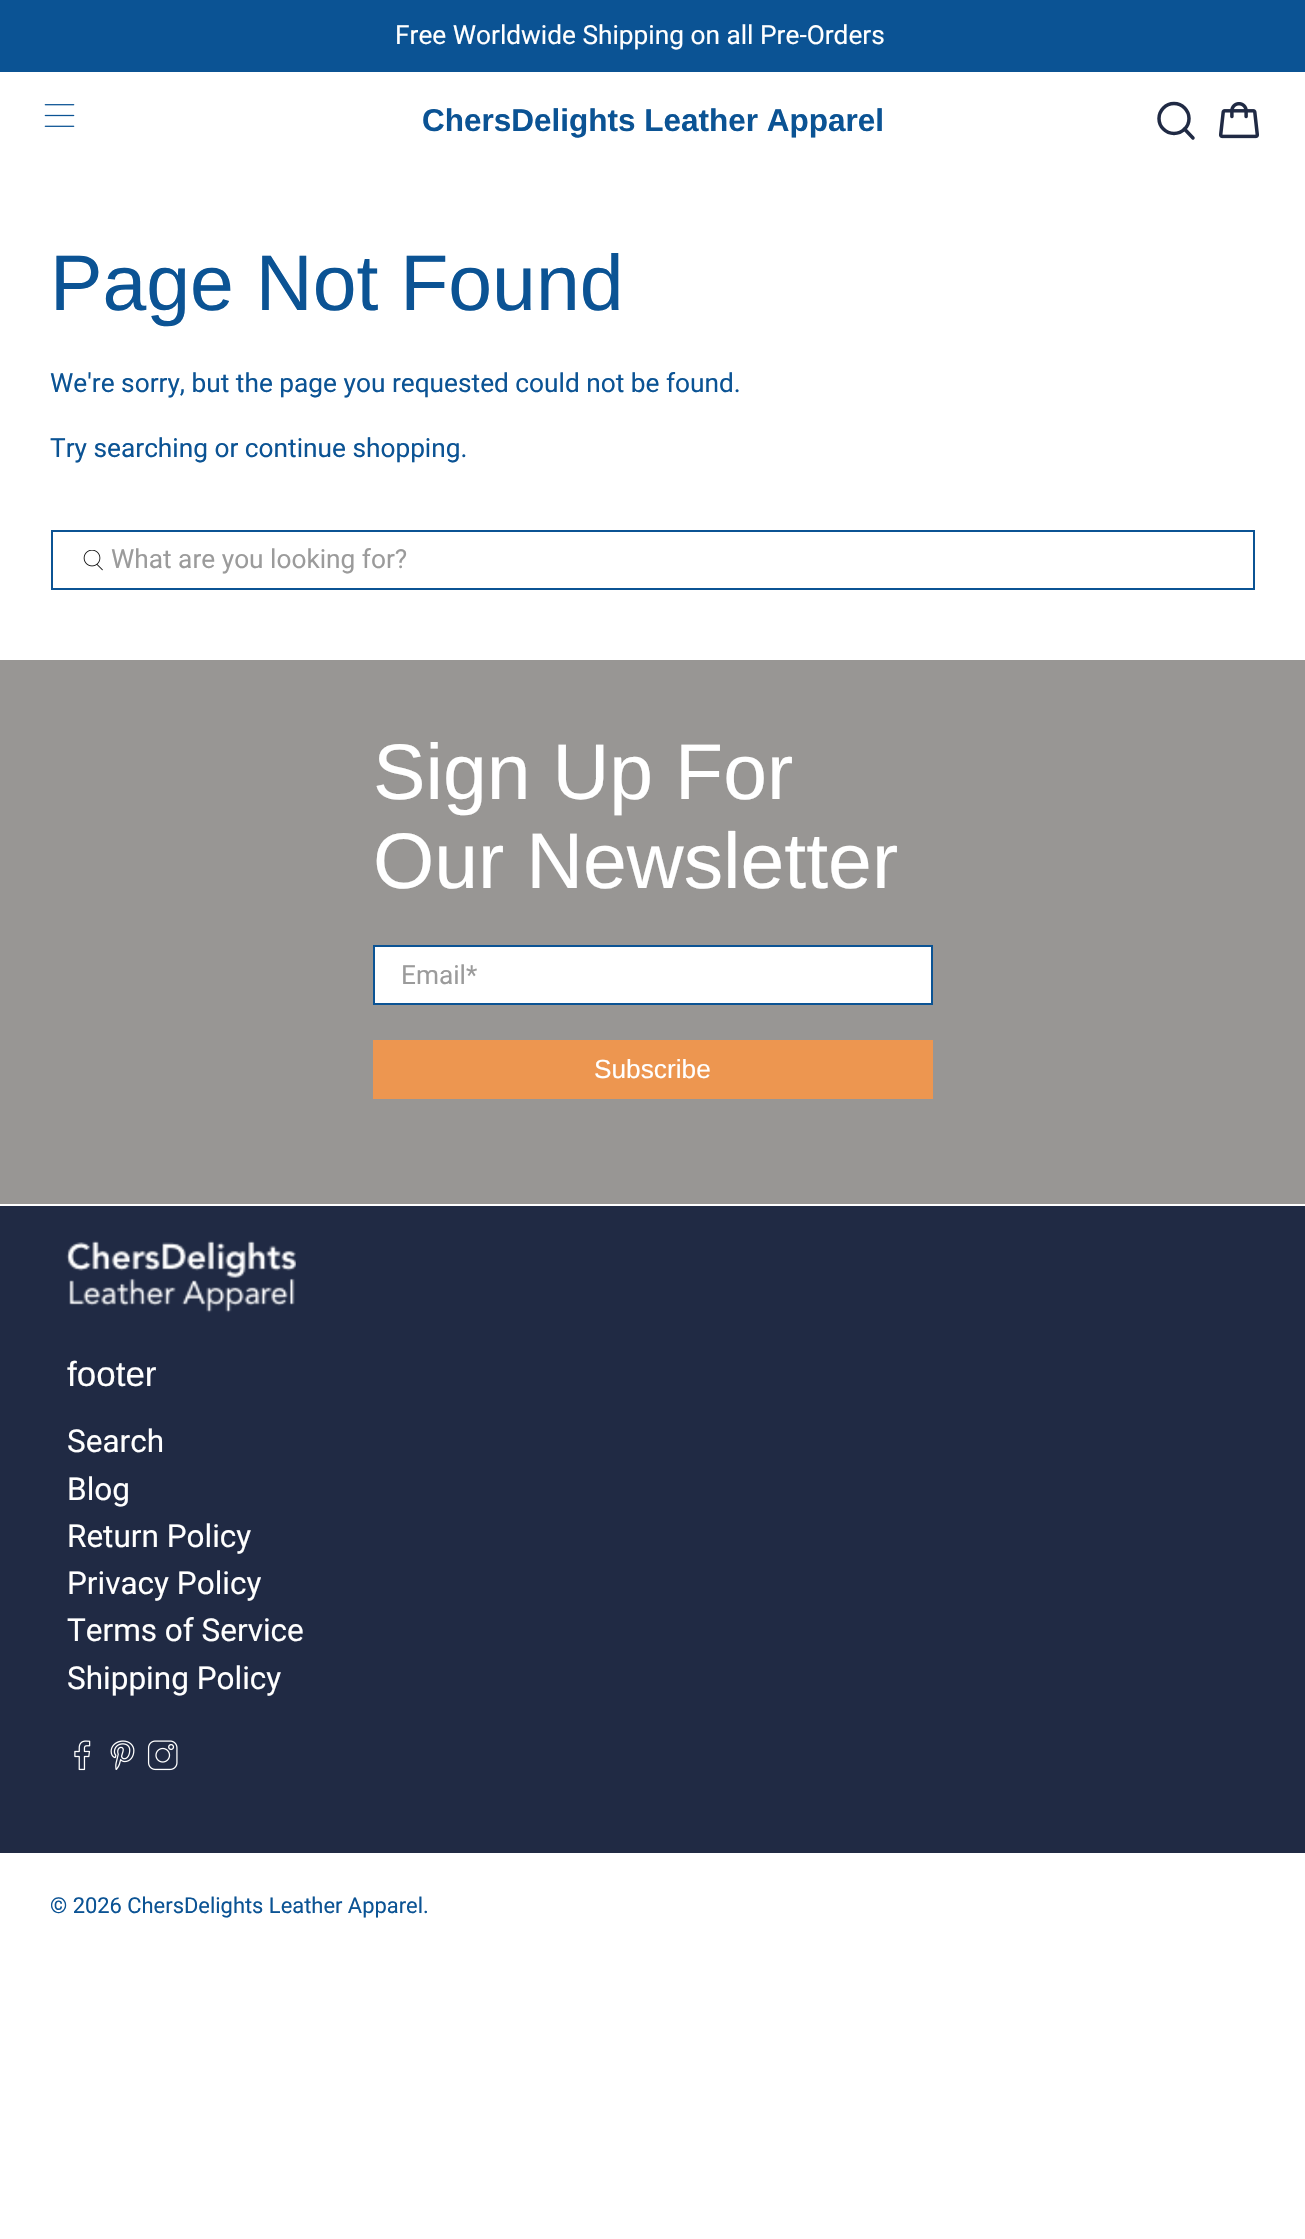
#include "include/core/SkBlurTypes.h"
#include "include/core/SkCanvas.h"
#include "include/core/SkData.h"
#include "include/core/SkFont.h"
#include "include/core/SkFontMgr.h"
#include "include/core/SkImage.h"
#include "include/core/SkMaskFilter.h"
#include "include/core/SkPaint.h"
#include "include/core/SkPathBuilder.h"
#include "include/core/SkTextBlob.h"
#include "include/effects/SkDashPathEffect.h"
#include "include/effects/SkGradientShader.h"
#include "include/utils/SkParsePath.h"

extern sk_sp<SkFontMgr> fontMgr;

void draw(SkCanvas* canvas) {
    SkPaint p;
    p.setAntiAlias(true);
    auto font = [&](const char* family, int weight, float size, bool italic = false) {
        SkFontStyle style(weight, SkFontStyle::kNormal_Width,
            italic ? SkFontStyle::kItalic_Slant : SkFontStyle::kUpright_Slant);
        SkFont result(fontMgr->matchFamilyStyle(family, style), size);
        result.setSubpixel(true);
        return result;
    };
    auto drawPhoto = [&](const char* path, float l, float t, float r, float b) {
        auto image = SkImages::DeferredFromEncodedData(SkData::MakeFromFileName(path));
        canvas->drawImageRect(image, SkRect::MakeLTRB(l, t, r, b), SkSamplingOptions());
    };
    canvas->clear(0xFFFFFFFF);
    p.setColor(0xFF0B5394);
    canvas->drawRect(SkRect::MakeLTRB(0, 0, 1305, 72), p);
    auto font1 = font("Roboto", 400, 26.25f);
    p.setColor(0xFFFFFFFF);
    canvas->drawString("Free Worldwide Shipping on all Pre-Orders", 395, 44, font1, p);
    drawPhoto("media/1.png", 44, 104, 75, 127);
    auto font2 = font("Liberation Sans", 700, 31.5f);
    p.setColor(0xFF0B5394);
    canvas->drawString("ChersDelights Leather Apparel", 422, 131, font2, p);
    p.setStyle(SkPaint::kStroke_Style);
    p.setStrokeWidth(3.5f);
    p.setColor(0xFF202A44);
    canvas->drawCircle(1174, 118.5f, 15, p);
    p.setStrokeCap(SkPaint::kRound_Cap);
    p.setStrokeJoin(SkPaint::kRound_Join);
    canvas->drawPath(SkPathBuilder().moveTo(1184.5f, 129).lineTo(1193, 138).detach(), p);
    drawPhoto("media/2.png", 1219, 102, 1259, 139);
    auto font3 = font("Liberation Sans", 400, 78.75f);
    p.setStyle(SkPaint::kFill_Style);
    p.setColor(0xFF0B5394);
    canvas->drawString("Page Not Found", 50, 310, font3, p);
    canvas->drawString("We're sorry, but the page you requested could not be found.", 50, 392, font1, p);
    canvas->drawString("Try searching or continue shopping.", 50, 457, font1, p);
    p.setStyle(SkPaint::kStroke_Style);
    p.setStrokeWidth(2);
    p.setStrokeCap(SkPaint::kButt_Cap);
    p.setStrokeJoin(SkPaint::kMiter_Join);
    canvas->drawRect(SkRect::MakeLTRB(52, 531, 1254, 589), p);
    drawPhoto("media/3.png", 83, 550, 103, 571);
    p.setStyle(SkPaint::kFill_Style);
    p.setColor(0xFF9B9B9B);
    canvas->drawString("What are you looking for?", 111, 568, font1, p);
    p.setColor(0xFF989694);
    canvas->drawRect(SkRect::MakeLTRB(0, 660, 1305, 1204), p);
    p.setColor(0xFFFFFFFF);
    canvas->drawString("Sign Up For", 373, 799, font3, p);
    canvas->drawString("Our Newsletter", 373, 888, font3, p);
    canvas->drawRect(SkRect::MakeLTRB(374, 946, 932, 1004), p);
    p.setStyle(SkPaint::kStroke_Style);
    p.setColor(0xFF0B5394);
    canvas->drawRect(SkRect::MakeLTRB(374, 946, 932, 1004), p);
    p.setStyle(SkPaint::kFill_Style);
    p.setColor(0xFF9B9B9B);
    canvas->drawString("Email*", 401, 984, font1, p);
    p.setColor(0xFFED9650);
    canvas->drawRect(SkRect::MakeLTRB(373, 1040, 933, 1099), p);
    auto font4 = font("Liberation Sans", 400, 26.25f);
    p.setColor(0xFFFFFFFF);
    canvas->drawString("Subscribe", 594, 1078, font4, p);
    p.setColor(0xFF202A44);
    canvas->drawRect(SkRect::MakeLTRB(0, 1206, 1305, 1853), p);
    drawPhoto("media/4.png", 66, 1240, 296, 1313);
    auto font5 = font("Liberation Sans", 400, 35);
    p.setColor(0xFFFFFFFF);
    canvas->drawString("footer", 67, 1386, font5, p);
    auto font6 = font("Roboto", 400, 31.5f);
    {
        const struct { const char* s; float x, y; } items[] = {
            {"Search", 67, 1452},
            {"Blog", 67, 1500},
            {"Return Policy", 67, 1547},
            {"Privacy Policy", 67, 1594},
            {"Terms of Service", 67, 1641},
            {"Shipping Policy", 67, 1689},
        };
        for (auto [s, x, y] : items) {
            canvas->drawString(s, x, y, font6, p);
        }
    }
    drawPhoto("media/5.png", 74, 1740, 91, 1771);
    drawPhoto("media/6.png", 110, 1740, 135, 1770);
    drawPhoto("media/7.png", 147, 1740, 178, 1771);
    auto font7 = font("Roboto", 400, 21.9f);
    p.setColor(0xFF0B5394);
    canvas->drawString("© 2026 ChersDelights Leather Apparel.", 50, 1913, font7, p);
}
